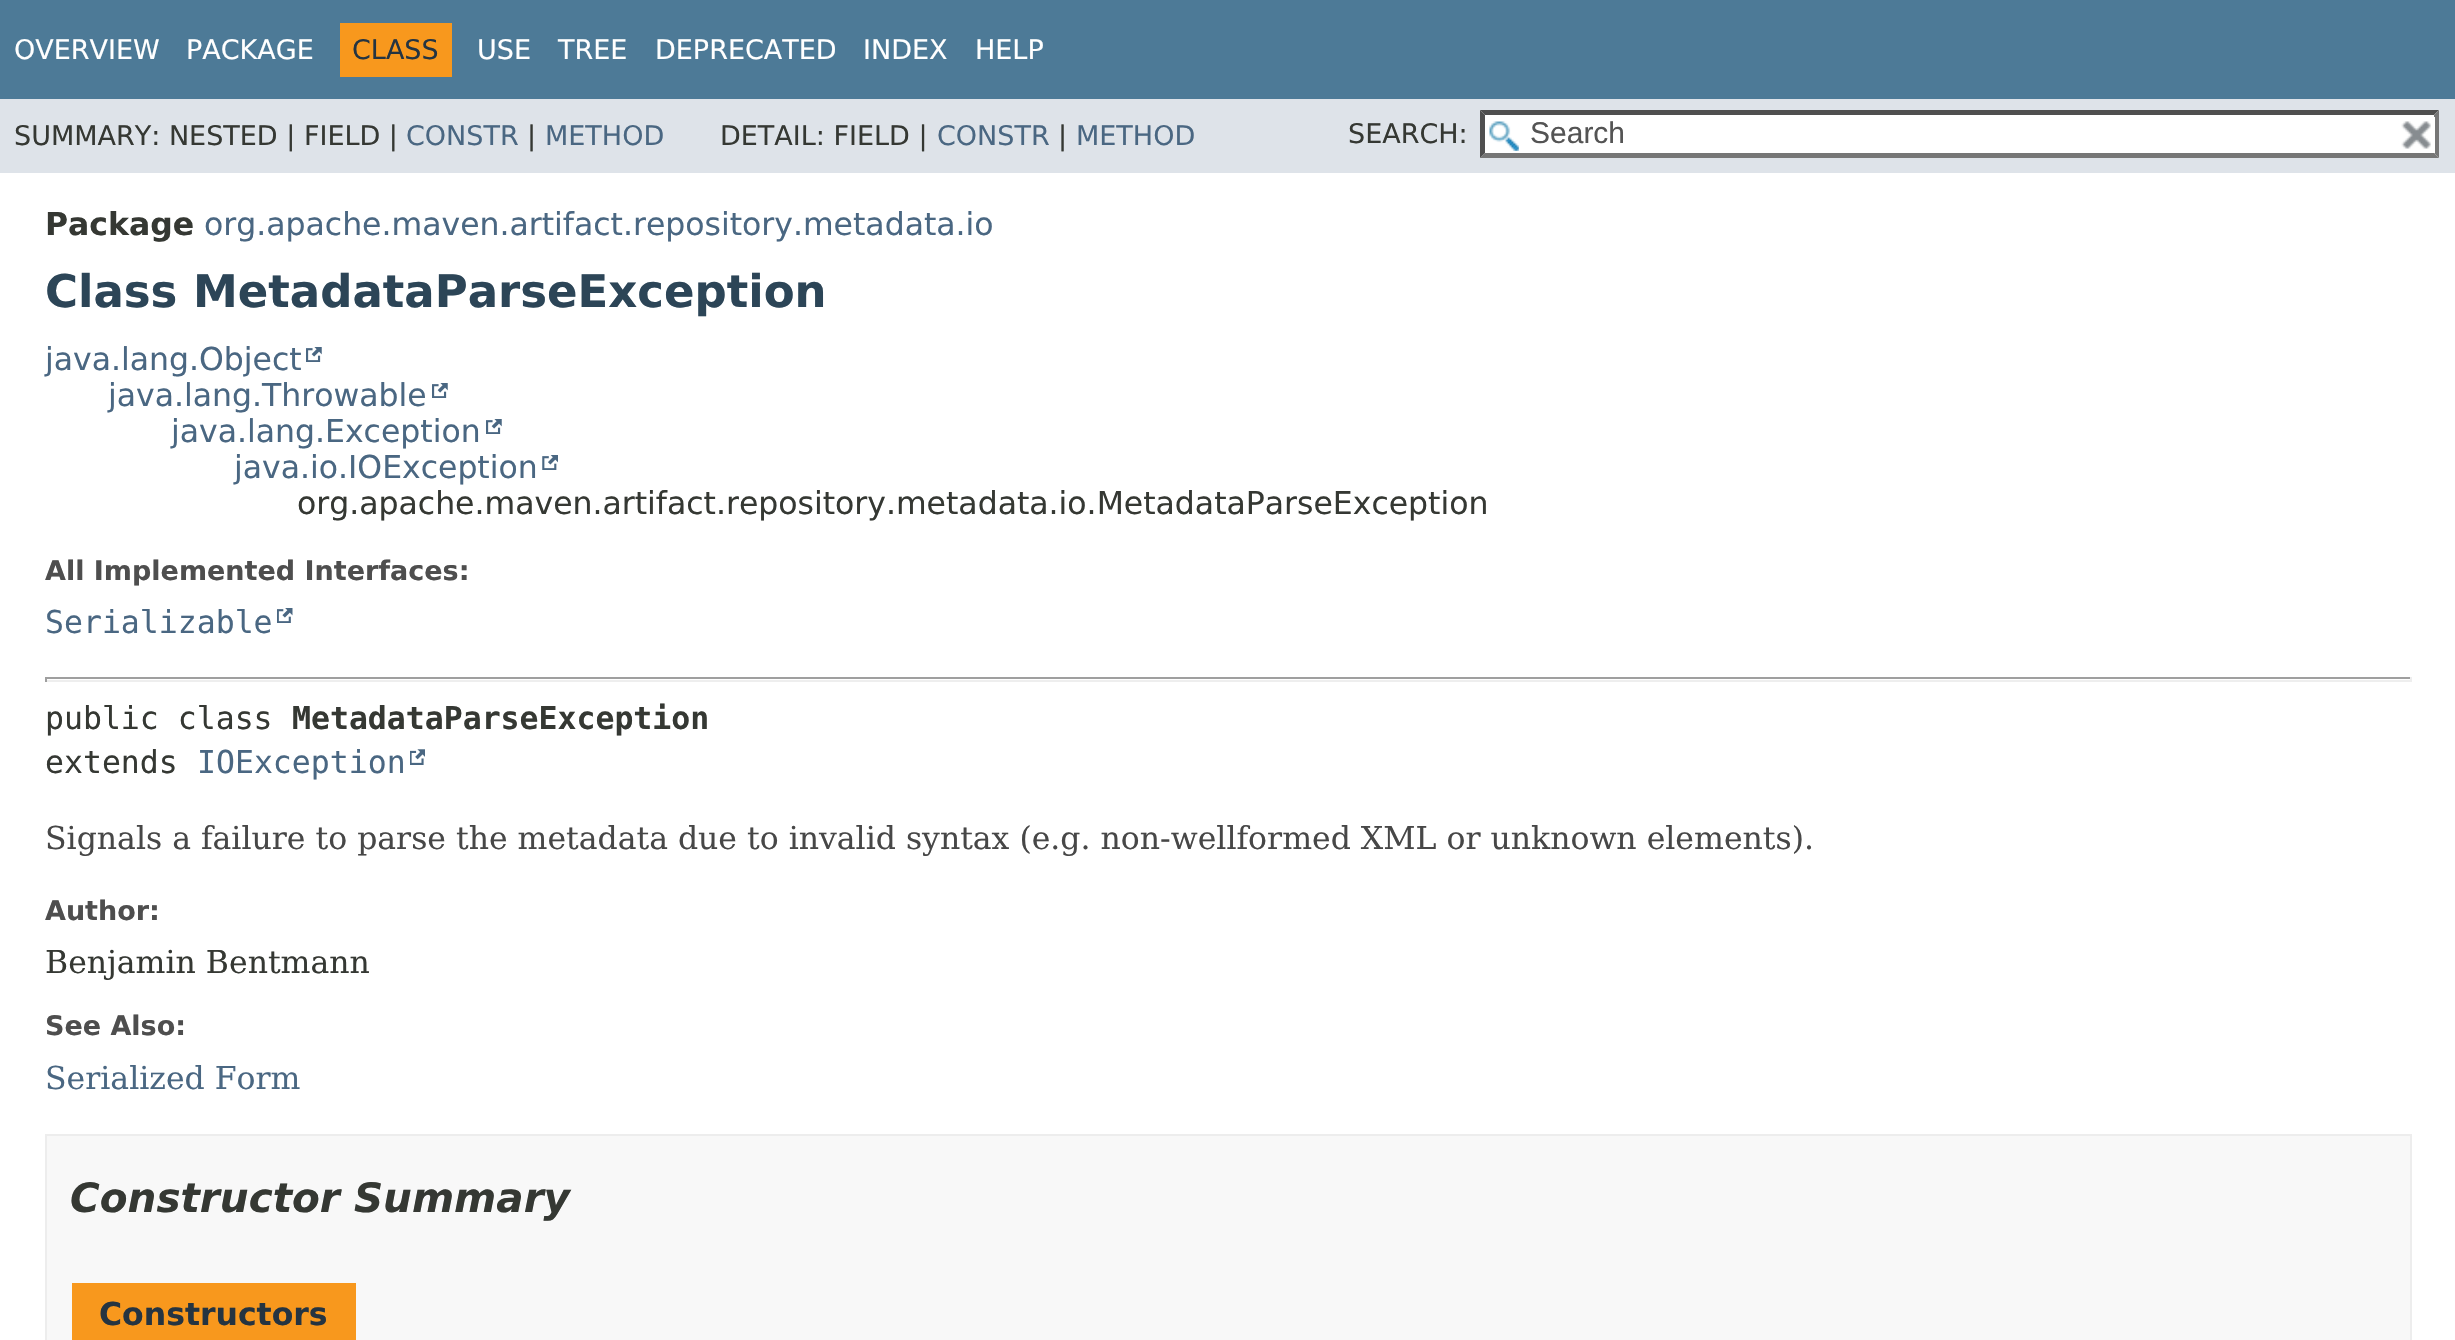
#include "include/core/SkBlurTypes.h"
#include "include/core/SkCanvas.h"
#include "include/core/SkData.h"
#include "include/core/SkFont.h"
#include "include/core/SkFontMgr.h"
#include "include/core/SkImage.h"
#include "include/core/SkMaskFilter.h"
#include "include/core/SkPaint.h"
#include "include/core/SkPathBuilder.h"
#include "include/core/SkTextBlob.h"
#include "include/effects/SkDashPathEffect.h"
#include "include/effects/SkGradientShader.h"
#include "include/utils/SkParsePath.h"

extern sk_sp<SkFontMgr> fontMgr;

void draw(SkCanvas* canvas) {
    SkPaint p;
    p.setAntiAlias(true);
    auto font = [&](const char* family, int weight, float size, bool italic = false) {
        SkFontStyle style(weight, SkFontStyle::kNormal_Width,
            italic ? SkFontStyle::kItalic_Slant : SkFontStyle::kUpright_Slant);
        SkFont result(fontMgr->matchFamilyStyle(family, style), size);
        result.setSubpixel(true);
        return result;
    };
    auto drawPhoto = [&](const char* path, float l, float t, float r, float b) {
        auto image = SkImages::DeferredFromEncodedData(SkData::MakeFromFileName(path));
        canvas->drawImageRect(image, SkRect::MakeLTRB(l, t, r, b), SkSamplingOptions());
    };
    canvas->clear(0xFFFFFFFF);
    p.setColor(0xFF4D7A97);
    canvas->drawRect(SkRect::MakeLTRB(0, 0, 2455, 99), p);
    auto font1 = font("DejaVu Sans", 400, 27);
    p.setColor(0xFFFFFFFF);
    canvas->drawString("OVERVIEW", 14, 59, font1, p);
    canvas->drawString("PACKAGE", 186, 59, font1, p);
    p.setColor(0xFFF8981D);
    canvas->drawRect(SkRect::MakeLTRB(340, 23, 452, 77), p);
    p.setColor(0xFF253441);
    canvas->drawString("CLASS", 352, 59, font1, p);
    p.setColor(0xFFFFFFFF);
    {
        const struct { const char* s; float x, y; } items[] = {
            {"USE", 477, 59},
            {"TREE", 558, 59},
            {"DEPRECATED", 655, 59},
            {"INDEX", 863, 59},
            {"HELP", 975, 59},
        };
        for (auto [s, x, y] : items) {
            canvas->drawString(s, x, y, font1, p);
        }
    }
    p.setColor(0xFFDEE3E9);
    canvas->drawRect(SkRect::MakeLTRB(0, 99, 2455, 173), p);
    p.setColor(0xFF353833);
    canvas->drawString("SUMMARY: NESTED | FIELD |", 14, 145, font1, p);
    p.setColor(0xFF4A6782);
    canvas->drawString("CONSTR", 406, 145, font1, p);
    p.setColor(0xFF353833);
    canvas->drawString("|", 527, 145, font1, p);
    p.setColor(0xFF4A6782);
    canvas->drawString("METHOD", 545, 145, font1, p);
    p.setColor(0xFF353833);
    canvas->drawString("DETAIL: FIELD |", 720, 145, font1, p);
    p.setColor(0xFF4A6782);
    canvas->drawString("CONSTR", 937, 145, font1, p);
    p.setColor(0xFF353833);
    canvas->drawString("|", 1058, 145, font1, p);
    p.setColor(0xFF4A6782);
    canvas->drawString("METHOD", 1076, 145, font1, p);
    p.setColor(0xFF353833);
    canvas->drawString("SEARCH:", 1348, 143, font1, p);
    p.setColor(0xFFFFFFFF);
    canvas->drawRect(SkRect::MakeLTRB(1481, 110, 2439, 158), p);
    drawPhoto("media/1.png", 1489, 121, 1519, 151);
    p.setColor(0xFF4F4F4F);
    canvas->drawPath(SkPathBuilder().moveTo(1480, 110).lineTo(2439, 110).lineTo(2434, 115).lineTo(1485, 115).close().detach(), p);
    p.setColor(0xFF767676);
    canvas->drawPath(SkPathBuilder().moveTo(2439, 110).lineTo(2439, 158).lineTo(2434, 153).lineTo(2434, 115).close().detach(), p);
    canvas->drawPath(SkPathBuilder().moveTo(2439, 158).lineTo(1480, 158).lineTo(1485, 153).lineTo(2434, 153).close().detach(), p);
    p.setColor(0xFF4F4F4F);
    canvas->drawPath(SkPathBuilder().moveTo(1480, 158).lineTo(1480, 110).lineTo(1485, 115).lineTo(1485, 153).close().detach(), p);
    auto font2 = font("Liberation Sans", 400, 30);
    p.setColor(0xFF545454);
    canvas->drawString("Search", 1530, 143, font2, p);
    p.setColor(0xFFFFFFFF);
    canvas->drawRect(SkRect::MakeLTRB(2434, 117, 2435, 153), p);
    drawPhoto("media/2.png", 2401, 121, 2431, 149);
    auto font3 = font("DejaVu Sans", 700, 31.5f);
    p.setColor(0xFF353833);
    canvas->drawString("Package", 45, 235, font3, p);
    auto font4 = font("DejaVu Sans", 400, 31.5f);
    p.setColor(0xFF4A6782);
    canvas->drawString("org.apache.maven.artifact.repository.metadata.io", 204, 235, font4, p);
    auto font5 = font("DejaVu Sans", 700, 45);
    p.setColor(0xFF2C4557);
    canvas->drawString("Class MetadataParseException", 45, 307, font5, p);
    p.setColor(0xFF4A6782);
    canvas->drawString("java.lang.Object", 45, 370, font4, p);
    drawPhoto("media/3.png", 306, 347, 322, 362);
    canvas->drawString("java.lang.Throwable", 108, 406, font4, p);
    drawPhoto("media/3.png", 432, 383, 448, 398);
    canvas->drawString("java.lang.Exception", 171, 442, font4, p);
    drawPhoto("media/3.png", 486, 419, 502, 434);
    canvas->drawString("java.io.IOException", 234, 478, font4, p);
    drawPhoto("media/4.png", 542, 455, 558, 470);
    p.setColor(0xFF353833);
    canvas->drawString("org.apache.maven.artifact.repository.metadata.io.MetadataParseException", 297, 514, font4, p);
    auto font6 = font("DejaVu Sans", 700, 27);
    p.setColor(0xFF4E4E4E);
    canvas->drawString("All Implemented Interfaces:", 45, 580, font6, p);
    auto font7 = font("DejaVu Sans Mono", 400, 31.5f);
    p.setColor(0xFF4A6782);
    canvas->drawString("Serializable", 45, 633, font7, p);
    drawPhoto("media/5.png", 277, 608, 293, 623);
    {
        const struct { float l, t, r, b; SkColor color; } items[] = {
            {45, 677, 2412, 679, 0xFF9F9F9F},
            {2410, 677, 2412, 682, 0xFFEEEEEE},
            {45, 680, 2412, 682, 0xFFEEEEEE},
            {45, 677, 47, 682, 0xFF9F9F9F},
        };
        for (auto [l, t, r, b, color] : items) {
            p.setColor(color);
            canvas->drawRect(SkRect::MakeLTRB(l, t, r, b), p);
        }
    }
    p.setColor(0xFF353833);
    canvas->drawString("public class", 45, 729, font7, p);
    auto font8 = font("DejaVu Sans Mono", 700, 31.5f);
    canvas->drawString("MetadataParseException", 292, 729, font8, p);
    canvas->drawString("extends", 45, 773, font7, p);
    p.setColor(0xFF4A6782);
    canvas->drawString("IOException", 197, 773, font7, p);
    drawPhoto("media/6.png", 410, 749, 425, 765);
    auto font9 = font("DejaVu Serif", 400, 31.5f);
    p.setColor(0xFF474747);
    canvas->drawString("Signals a failure to parse the metadata due to invalid syntax (e.g. non-wellformed XML or unknown elements).", 45, 849, font9, p);
    p.setColor(0xFF4E4E4E);
    canvas->drawString("Author:", 45, 920, font6, p);
    p.setColor(0xFF353833);
    canvas->drawString("Benjamin Bentmann", 45, 973, font9, p);
    p.setColor(0xFF4E4E4E);
    canvas->drawString("See Also:", 45, 1035, font6, p);
    p.setColor(0xFF4A6782);
    canvas->drawString("Serialized Form", 45, 1089, font9, p);
    p.setColor(0xFFF8F8F8);
    canvas->drawRect(SkRect::MakeLTRB(46, 1135, 2411, 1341), p);
    p.setStyle(SkPaint::kStroke_Style);
    p.setStrokeWidth(2);
    p.setColor(0xFFEDEDED);
    canvas->drawRect(SkRect::MakeLTRB(46, 1135, 2411, 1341), p);
    auto font10 = font("DejaVu Sans", 700, 40.5f, true);
    p.setStyle(SkPaint::kFill_Style);
    p.setColor(0xFF353833);
    canvas->drawString("Constructor Summary", 70, 1212, font10, p);
    p.setColor(0xFFF8981D);
    canvas->drawRect(SkRect::MakeLTRB(72, 1283, 356, 1340), p);
    p.setColor(0xFF253441);
    canvas->drawString("Constructors", 99, 1325, font3, p);
}
